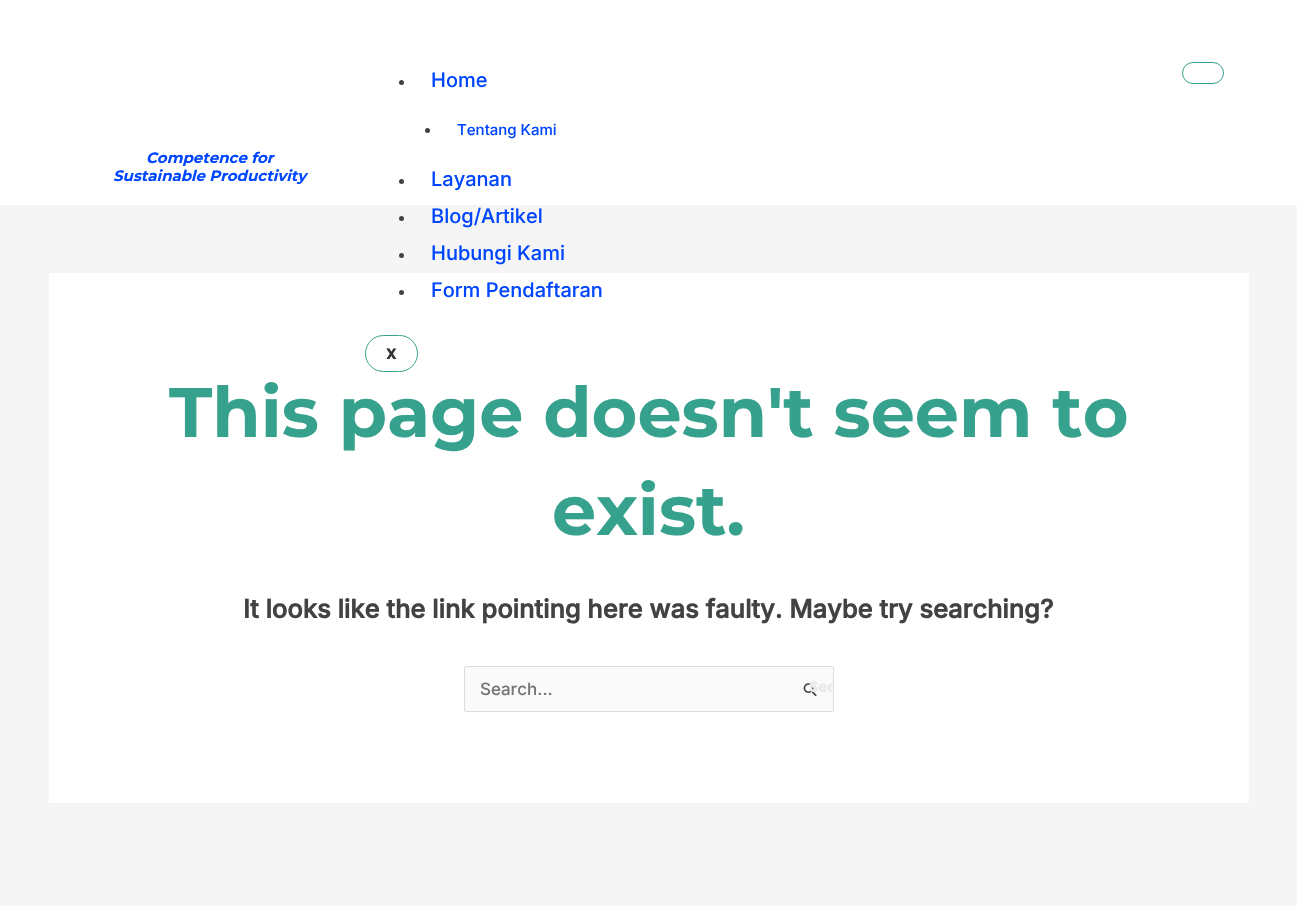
#include "include/core/SkBlurTypes.h"
#include "include/core/SkCanvas.h"
#include "include/core/SkData.h"
#include "include/core/SkFont.h"
#include "include/core/SkFontMgr.h"
#include "include/core/SkImage.h"
#include "include/core/SkMaskFilter.h"
#include "include/core/SkPaint.h"
#include "include/core/SkPathBuilder.h"
#include "include/core/SkTextBlob.h"
#include "include/effects/SkDashPathEffect.h"
#include "include/effects/SkGradientShader.h"
#include "include/utils/SkParsePath.h"

extern sk_sp<SkFontMgr> fontMgr;

void draw(SkCanvas* canvas) {
    SkPaint p;
    p.setAntiAlias(true);
    auto font = [&](const char* family, int weight, float size, bool italic = false) {
        SkFontStyle style(weight, SkFontStyle::kNormal_Width,
            italic ? SkFontStyle::kItalic_Slant : SkFontStyle::kUpright_Slant);
        SkFont result(fontMgr->matchFamilyStyle(family, style), size);
        result.setSubpixel(true);
        return result;
    };
    auto drawPhoto = [&](const char* path, float l, float t, float r, float b) {
        auto image = SkImages::DeferredFromEncodedData(SkData::MakeFromFileName(path));
        canvas->drawImageRect(image, SkRect::MakeLTRB(l, t, r, b), SkSamplingOptions());
    };
    canvas->clear(0xFFF5F5F5);
    p.setColor(0xFFFFFFFF);
    canvas->drawRect(SkRect::MakeLTRB(0, 0, 1297, 205), p);
    auto font1 = font("Montserrat", 100, 15, true);
    p.setColor(0xFF0046FF);
    canvas->drawString("Competence for", 146, 163, font1, p);
    canvas->drawString("Sustainable Productivity", 113, 181, font1, p);
    p.setColor(0xFF424242);
    canvas->drawCircle(401.5f, 82.5f, 2.5f, p);
    auto font2 = font("Inter", 500, 20);
    p.setColor(0xFF0046FF);
    canvas->drawString("Home", 431, 87, font2, p);
    p.setColor(0xFF424242);
    canvas->drawCircle(427.5f, 130.5f, 2.5f, p);
    auto font3 = font("Inter", 500, 15);
    p.setColor(0xFF0046FF);
    canvas->drawString("Tentang Kami", 457, 135, font3, p);
    p.setColor(0xFF424242);
    canvas->drawCircle(401.5f, 181.5f, 2.5f, p);
    p.setColor(0xFF0046FF);
    canvas->drawString("Layanan", 431, 186, font2, p);
    p.setColor(0xFF424242);
    canvas->drawCircle(401.5f, 218.5f, 2.5f, p);
    p.setColor(0xFF0046FF);
    canvas->drawString("Blog/Artikel", 431, 223, font2, p);
    p.setColor(0xFF424242);
    canvas->drawCircle(401.5f, 255.5f, 2.5f, p);
    p.setColor(0xFF0046FF);
    canvas->drawString("Hubungi Kami", 431, 260, font2, p);
    p.setColor(0xFFFFFFFF);
    canvas->drawRect(SkRect::MakeLTRB(49, 273, 1249, 803), p);
    p.setColor(0xFF424242);
    canvas->drawCircle(401.5f, 292.5f, 2.5f, p);
    p.setColor(0xFF0046FF);
    canvas->drawString("Form Pendaftaran", 431, 297, font2, p);
    p.setStyle(SkPaint::kStroke_Style);
    p.setStrokeWidth(1);
    p.setColor(0xFF36A18D);
    canvas->drawRoundRect(SkRect::MakeLTRB(365.5f, 335.5f, 417.5f, 371.5f), 18, 18, p);
    auto font4 = font("Poppins", 700, 15);
    p.setStyle(SkPaint::kFill_Style);
    p.setColor(0xFF333333);
    canvas->drawString("X", 386, 359, font4, p);
    p.setStyle(SkPaint::kStroke_Style);
    p.setColor(0xFF36A18D);
    canvas->drawRoundRect(SkRect::MakeLTRB(1182.5f, 62.5f, 1223.5f, 83.5f), 10.5f, 10.5f, p);
    auto font5 = font("Montserrat", 100, 70);
    p.setStyle(SkPaint::kFill_Style);
    canvas->drawString("This page doesn't seem to", 169, 437, font5, p);
    canvas->drawString("exist.", 552, 535, font5, p);
    auto font6 = font("Inter", 700, 25.5f);
    p.setColor(0xFF424242);
    canvas->drawString("It looks like the link pointing here was faulty. Maybe try searching?", 243, 618, font6, p);
    p.setColor(0xFFFAFAFA);
    canvas->drawRoundRect(SkRect::MakeLTRB(464.5f, 666.5f, 833.5f, 711.5f), 1.5f, 1.5f, p);
    p.setStyle(SkPaint::kStroke_Style);
    p.setColor(0xFFDDDDDD);
    canvas->drawRoundRect(SkRect::MakeLTRB(464.5f, 666.5f, 833.5f, 711.5f), 1.5f, 1.5f, p);
    auto font7 = font("Inter", 500, 17);
    p.setStyle(SkPaint::kFill_Style);
    p.setColor(0xFF757575);
    canvas->drawString("Search...", 480, 695, font7, p);
    drawPhoto("media/1.png", 803, 683, 817, 697);
    canvas->save();
    canvas->clipPath(SkPathBuilder().moveTo(791, 666).lineTo(832, 666).cubicTo(833, 666, 834, 667, 834, 668).lineTo(834, 705).cubicTo(834, 706, 833, 707, 832, 707).lineTo(791, 707).cubicTo(790, 707, 789, 706, 789, 705).lineTo(789, 668).cubicTo(789, 667, 790, 666, 791, 666).close().detach(), true);
    p.setColor(0xFFE9E9E9);
    canvas->drawString("Sea", 809, 692, font4, p);
    canvas->restore();
}
